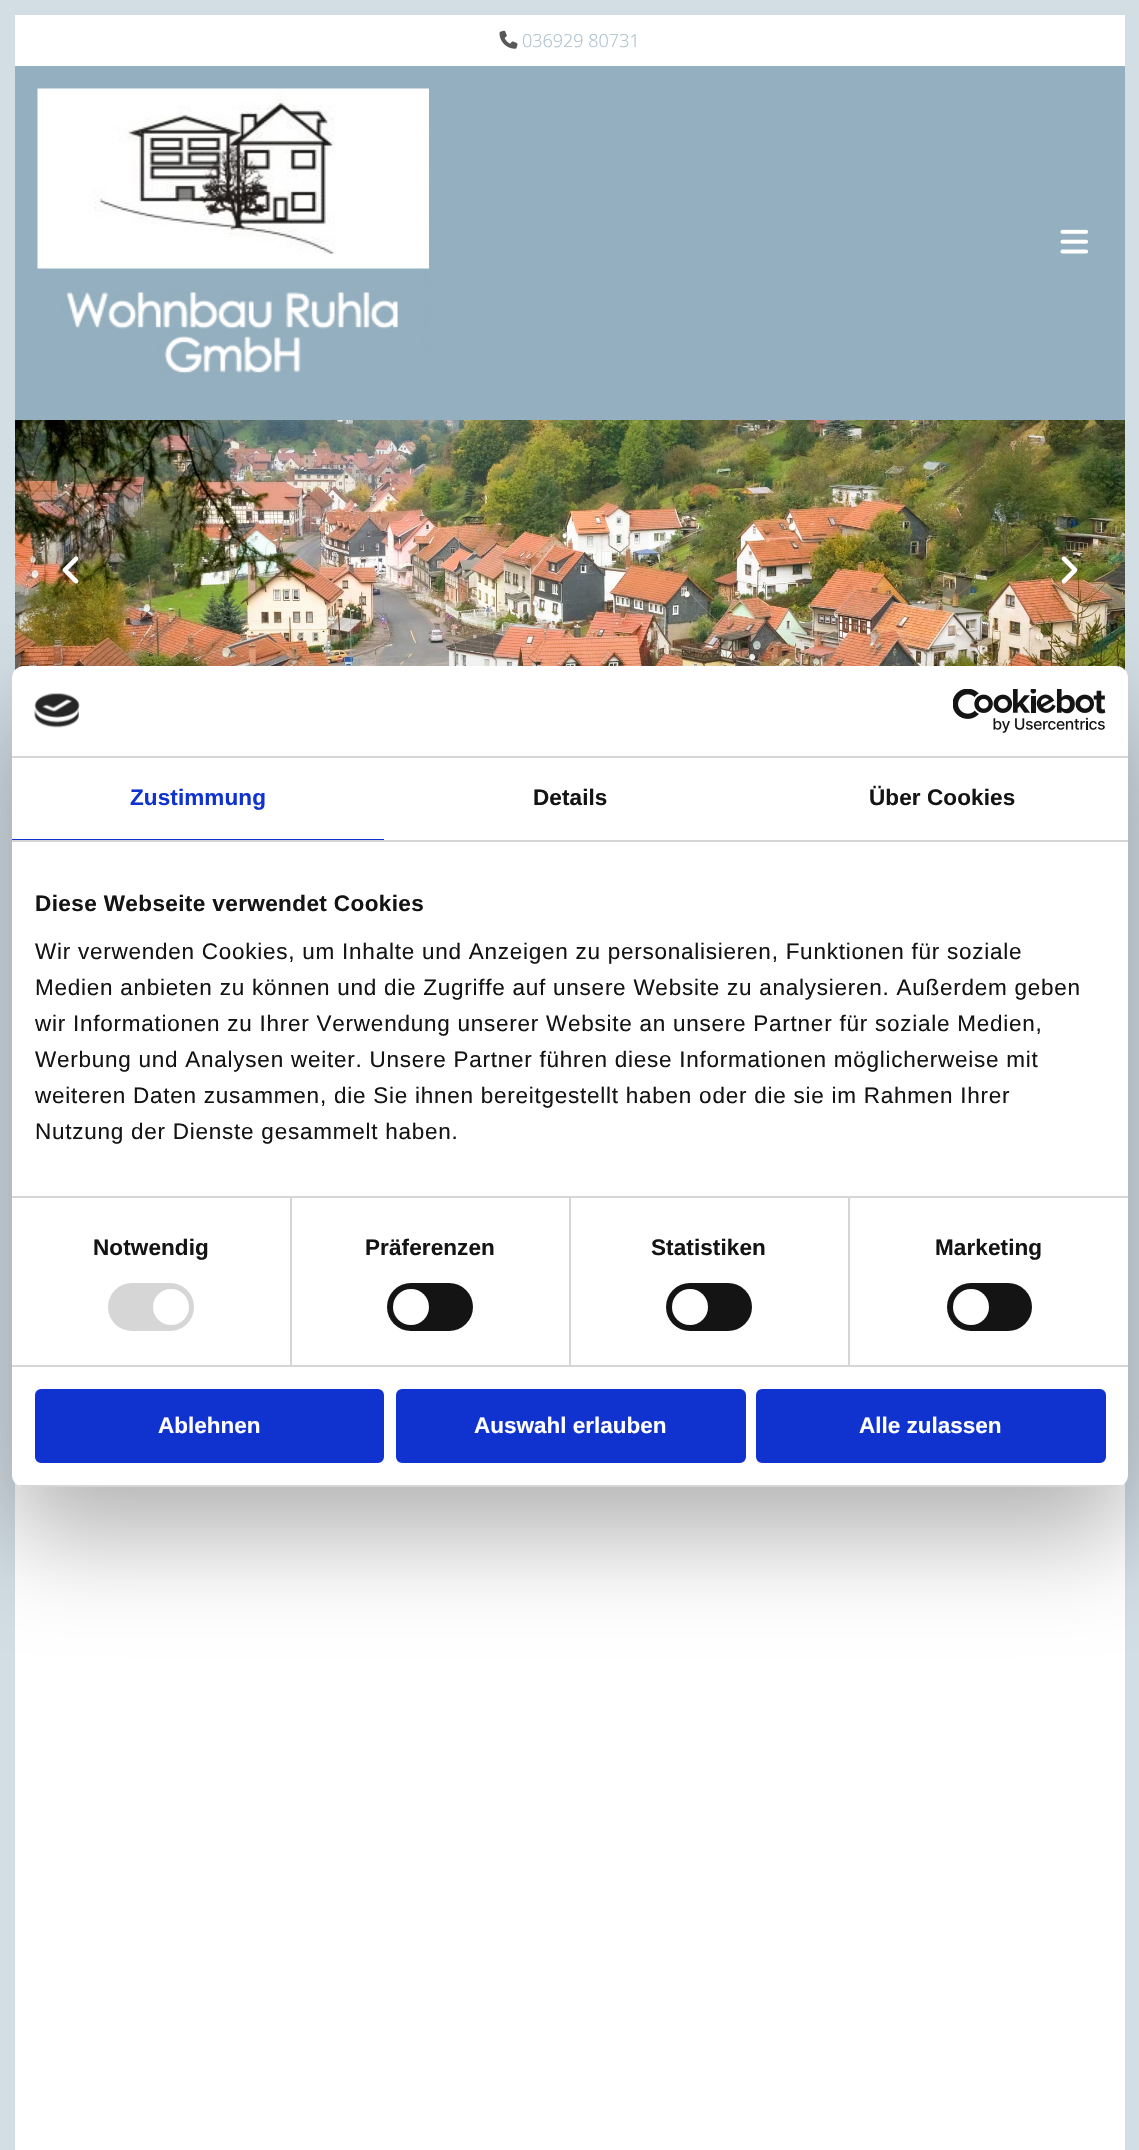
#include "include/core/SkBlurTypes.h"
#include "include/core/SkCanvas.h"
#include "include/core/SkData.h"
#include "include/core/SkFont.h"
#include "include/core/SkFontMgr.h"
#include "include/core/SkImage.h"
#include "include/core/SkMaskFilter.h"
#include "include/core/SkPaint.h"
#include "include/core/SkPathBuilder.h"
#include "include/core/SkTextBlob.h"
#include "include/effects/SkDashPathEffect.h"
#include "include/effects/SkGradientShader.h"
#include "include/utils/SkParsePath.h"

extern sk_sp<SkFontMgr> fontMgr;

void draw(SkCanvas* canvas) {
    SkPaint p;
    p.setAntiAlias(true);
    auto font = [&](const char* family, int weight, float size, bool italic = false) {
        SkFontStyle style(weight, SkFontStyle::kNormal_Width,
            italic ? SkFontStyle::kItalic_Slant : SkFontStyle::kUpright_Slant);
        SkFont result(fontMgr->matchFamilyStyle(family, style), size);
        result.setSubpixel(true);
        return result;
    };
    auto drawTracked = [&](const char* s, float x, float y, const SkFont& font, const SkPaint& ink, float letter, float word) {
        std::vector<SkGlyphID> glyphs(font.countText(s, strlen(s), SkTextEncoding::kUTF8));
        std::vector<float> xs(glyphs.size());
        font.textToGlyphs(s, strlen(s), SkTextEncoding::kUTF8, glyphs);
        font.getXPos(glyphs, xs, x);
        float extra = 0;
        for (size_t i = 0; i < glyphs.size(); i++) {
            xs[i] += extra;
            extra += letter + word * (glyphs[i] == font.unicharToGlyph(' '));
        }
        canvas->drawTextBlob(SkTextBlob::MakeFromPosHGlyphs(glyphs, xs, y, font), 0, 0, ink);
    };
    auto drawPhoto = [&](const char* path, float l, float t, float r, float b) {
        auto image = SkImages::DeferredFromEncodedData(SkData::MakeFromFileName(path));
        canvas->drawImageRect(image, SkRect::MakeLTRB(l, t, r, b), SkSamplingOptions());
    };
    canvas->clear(0xFFFFFFFF);
    p.setStyle(SkPaint::kStroke_Style);
    p.setStrokeWidth(15);
    p.setColor(0xFFD2DDE4);
    canvas->drawRect(SkRect::MakeLTRB(7.5f, 7.5f, 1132.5f, 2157.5f), p);
    drawPhoto("media/1.png", 499, 30, 518, 49);
    auto font1 = font("Open Sans", 300, 18);
    p.setStyle(SkPaint::kFill_Style);
    p.setColor(0xFFA9BECB);
    canvas->drawString("036929 80731", 522, 47, font1, p);
    p.setColor(0xFF94AFC0);
    canvas->drawRect(SkRect::MakeLTRB(15, 66, 1125, 420), p);
    drawPhoto("media/2.png", 37, 88, 429, 375);
    drawPhoto("media/3.png", 1060, 229, 1088, 254);
    drawPhoto("media/4.png", 15, 420, 1125, 671);
    drawPhoto("media/5.png", 62, 556, 79, 584);
    drawPhoto("media/6.png", 1061, 556, 1078, 584);
    p.setColor(0x4D000000);
    p.setMaskFilter(SkMaskFilter::MakeBlur(kNormal_SkBlurStyle, 51));
    canvas->drawRoundRect(SkRect::MakeLTRB(12, 714, 1128, 1535), 12, 12, p);
    p.setMaskFilter(nullptr);
    p.setColor(0xFFFFFFFF);
    canvas->drawRoundRect(SkRect::MakeLTRB(12, 666, 1128, 1487), 12, 12, p);
    p.setColor(0xFFD6D6D6);
    canvas->drawRect(SkRect::MakeLTRB(12, 756, 1128, 758), p);
    drawPhoto("media/7.png", 34, 693, 80, 728);
    drawPhoto("media/8.png", 953, 689, 1106, 733);
    canvas->drawRect(SkRect::MakeLTRB(12, 840, 1128, 842), p);
    p.setColor(0xFF1032CF);
    canvas->drawRect(SkRect::MakeLTRB(12, 839, 384, 840), p);
    auto font2 = font("Liberation Sans", 700, 22.5f);
    drawTracked("Zustimmung", 130, 805, font2, p, 0.1f, 0);
    p.setColor(0xFF141414);
    drawTracked("Details", 533, 805, font2, p, 0.1f, 0);
    drawTracked("Über Cookies", 869, 805, font2, p, 0.1f, 0);
    {
        const struct { float l, t, r, b; SkColor color; } items[] = {
            {290, 1197, 292, 1365, 0xFFD6D6D6},
            {569, 1197, 571, 1365, 0xFFD6D6D6},
            {848, 1197, 850, 1365, 0xFFD6D6D6},
            {12, 1196, 1128, 1198, 0xFFD6D6D6},
        };
        for (auto [l, t, r, b, color] : items) {
            p.setColor(color);
            canvas->drawRect(SkRect::MakeLTRB(l, t, r, b), p);
        }
    }
    p.setColor(0xFF141414);
    drawTracked("Diese Webseite verwendet Cookies", 35, 911, font2, p, 0.4f, 0);
    auto font3 = font("Liberation Sans", 400, 22.5f);
    {
        const struct { const char* s; float x, y; } items[] = {
            {"Wir verwenden Cookies, um Inhalte und Anzeigen zu personalisieren, Funktionen für soziale", 35, 959},
            {"Medien anbieten zu können und die Zugriffe auf unsere Website zu analysieren. Außerdem geben", 35, 995},
            {"wir Informationen zu Ihrer Verwendung unserer Website an unsere Partner für soziale Medien,", 35, 1031},
            {"Werbung und Analysen weiter. Unsere Partner führen diese Informationen möglicherweise mit", 35, 1067},
            {"weiteren Daten zusammen, die Sie ihnen bereitgestellt haben oder die sie im Rahmen Ihrer", 35, 1103},
            {"Nutzung der Dienste gesammelt haben.", 35, 1139},
        };
        for (auto [s, x, y] : items) {
            drawTracked(s, x, y, font3, p, 0.75f, 0);
        }
    }
    p.setColor(0xFFD6D6D6);
    canvas->drawRect(SkRect::MakeLTRB(12, 1365, 1128, 1367), p);
    p.setColor(0xFF141414);
    drawTracked("Notwendig", 93, 1255, font2, p, 0.1f, 0);
    p.setColor(0xFFD6D6D6);
    canvas->drawRoundRect(SkRect::MakeLTRB(108, 1283, 194, 1331), 24, 24, p);
    p.setColor(0xFFFFFFFF);
    canvas->drawCircle(171, 1307, 18, p);
    p.setColor(0xFF141414);
    drawTracked("Präferenzen", 365, 1255, font2, p, 0.1f, 0);
    canvas->drawRoundRect(SkRect::MakeLTRB(387, 1283, 473, 1331), 24, 24, p);
    p.setColor(0xFFFFFFFF);
    canvas->drawCircle(411, 1307, 18, p);
    p.setColor(0xFF141414);
    drawTracked("Statistiken", 651, 1255, font2, p, 0.1f, 0);
    canvas->drawRoundRect(SkRect::MakeLTRB(666, 1283, 752, 1331), 24, 24, p);
    p.setColor(0xFFFFFFFF);
    canvas->drawCircle(690, 1307, 18, p);
    p.setColor(0xFF141414);
    drawTracked("Marketing", 935, 1255, font2, p, 0.1f, 0);
    canvas->drawRoundRect(SkRect::MakeLTRB(947, 1283, 1032, 1331), 24, 24, p);
    p.setColor(0xFFFFFFFF);
    canvas->drawCircle(971, 1307, 18, p);
    canvas->save();
    canvas->clipPath(SkPathBuilder().moveTo(24, 666).lineTo(1116, 666).cubicTo(1122.5f, 666, 1128, 671.5f, 1128, 678).lineTo(1128, 1475).cubicTo(1128, 1481.5f, 1122.5f, 1487, 1116, 1487).lineTo(24, 1487).cubicTo(17.5f, 1487, 12, 1481.5f, 12, 1475).lineTo(12, 678).cubicTo(12, 671.5f, 17.5f, 666, 24, 666).close().detach(), true);
    p.setColor(0xFFD6D6D6);
    canvas->drawRect(SkRect::MakeLTRB(12, 1485, 1128, 1487), p);
    canvas->restore();
    p.setColor(0xFF1032CF);
    canvas->drawRoundRect(SkRect::MakeLTRB(36.5f, 1390.5f, 382.5f, 1461.5f), 4.5f, 4.5f, p);
    p.setStyle(SkPaint::kStroke_Style);
    p.setStrokeWidth(3);
    canvas->drawRoundRect(SkRect::MakeLTRB(36.5f, 1390.5f, 382.5f, 1461.5f), 4.5f, 4.5f, p);
    p.setStyle(SkPaint::kFill_Style);
    p.setColor(0xFFFFFFFF);
    canvas->drawString("Ablehnen", 158, 1433, font2, p);
    p.setColor(0xFF1032CF);
    canvas->drawRoundRect(SkRect::MakeLTRB(397.5f, 1390.5f, 744.5f, 1461.5f), 4.5f, 4.5f, p);
    p.setStyle(SkPaint::kStroke_Style);
    canvas->drawRoundRect(SkRect::MakeLTRB(397.5f, 1390.5f, 744.5f, 1461.5f), 4.5f, 4.5f, p);
    p.setStyle(SkPaint::kFill_Style);
    p.setColor(0xFFFFFFFF);
    canvas->drawString("Auswahl erlauben", 474, 1433, font2, p);
    p.setColor(0xFF1032CF);
    canvas->drawRoundRect(SkRect::MakeLTRB(757.5f, 1390.5f, 1104.5f, 1461.5f), 4.5f, 4.5f, p);
    p.setStyle(SkPaint::kStroke_Style);
    canvas->drawRoundRect(SkRect::MakeLTRB(757.5f, 1390.5f, 1104.5f, 1461.5f), 4.5f, 4.5f, p);
    p.setStyle(SkPaint::kFill_Style);
    p.setColor(0xFFFFFFFF);
    canvas->drawString("Alle zulassen", 859, 1433, font2, p);
}
